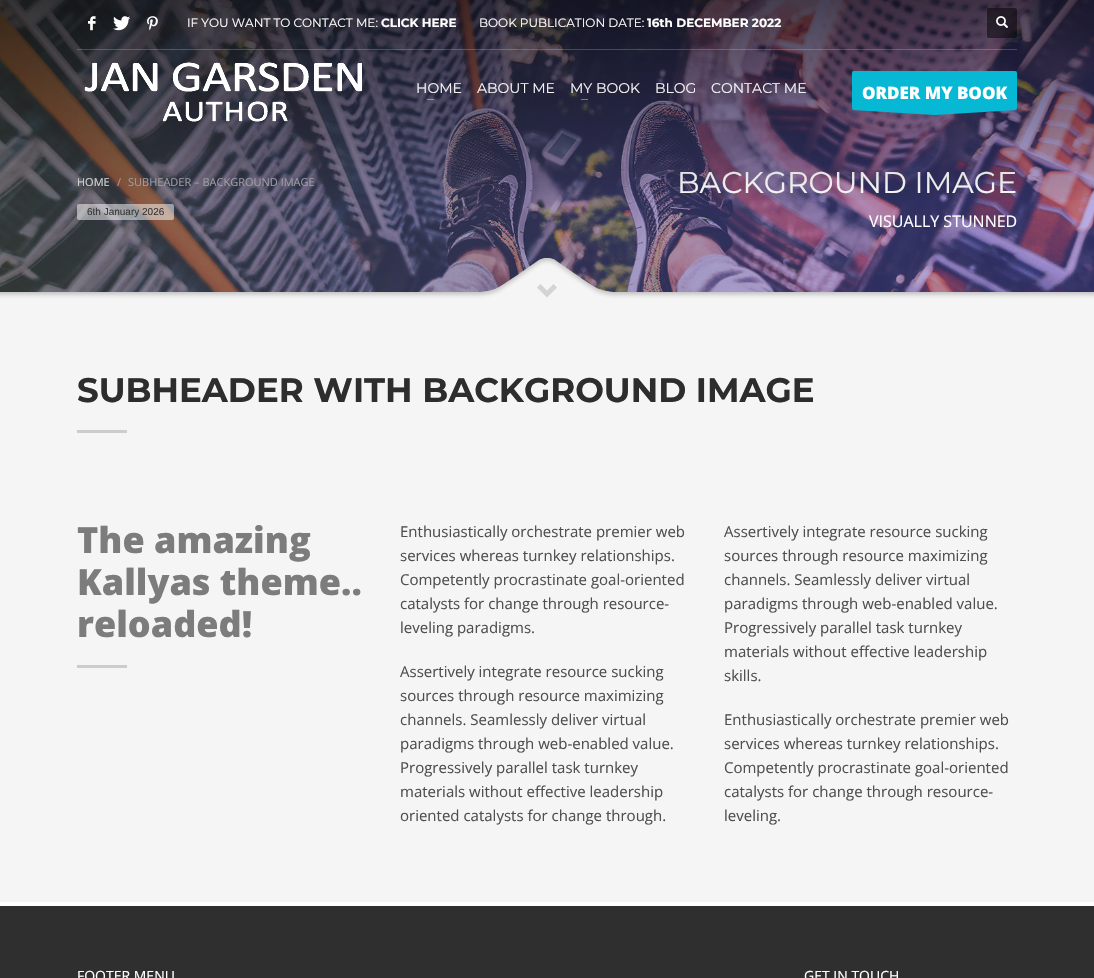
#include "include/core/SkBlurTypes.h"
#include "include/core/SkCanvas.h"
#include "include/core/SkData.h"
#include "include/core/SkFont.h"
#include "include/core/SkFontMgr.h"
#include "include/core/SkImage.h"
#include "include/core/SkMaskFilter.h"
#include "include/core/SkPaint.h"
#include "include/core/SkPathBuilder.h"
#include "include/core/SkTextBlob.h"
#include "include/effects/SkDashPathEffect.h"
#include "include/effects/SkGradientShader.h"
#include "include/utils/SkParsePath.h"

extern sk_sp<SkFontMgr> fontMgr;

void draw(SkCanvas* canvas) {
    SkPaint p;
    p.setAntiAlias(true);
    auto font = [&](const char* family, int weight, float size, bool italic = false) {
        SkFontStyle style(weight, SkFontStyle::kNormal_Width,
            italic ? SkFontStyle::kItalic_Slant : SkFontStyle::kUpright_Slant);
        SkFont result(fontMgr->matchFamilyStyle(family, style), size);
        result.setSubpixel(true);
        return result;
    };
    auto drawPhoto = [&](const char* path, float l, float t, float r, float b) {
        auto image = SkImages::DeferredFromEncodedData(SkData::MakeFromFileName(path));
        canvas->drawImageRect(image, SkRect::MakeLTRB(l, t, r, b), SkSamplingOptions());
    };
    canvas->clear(0xFFF5F5F5);
    drawPhoto("media/6.png", 0, 0, 1094, 292);
    auto font1 = font("Open Sans", 400, 11);
    p.setColor(0xFFE3E3E4);
    canvas->drawString("HOME", 77, 186, font1, p);
    p.setColor(0xFFBEA79E);
    canvas->drawString("/", 117, 186, font1, p);
    p.setColor(0xFFABA8B0);
    canvas->drawString("SUBHEADER – BACKGROUND IMAGE", 128, 186, font1, p);
    auto font2 = font("Montserrat", 400, 30);
    p.setColor(0xFFFFFFFF);
    canvas->drawString("BACKGROUND IMAGE", 677, 193, font2, p);
    {
        const SkColor colors[] = {0x99000000, 0x00000000};
        const float stops[] = {0, 1};
        const SkPoint ends[] = {{547, 0}, {547, 207}};
        p.setShader(SkGradientShader::MakeLinear(ends, colors, stops, 2, SkTileMode::kClamp));
        p.setAlpha(255);
    }
    canvas->drawRect(SkRect::MakeLTRB(0, 0, 1094, 200), p);
    drawPhoto("media/1.png", 88, 16, 96, 31);
    drawPhoto("media/2.png", 113, 16, 130, 31);
    drawPhoto("media/3.png", 147, 16, 158, 31);
    auto font3 = font("Montserrat", 400, 12);
    p.setShader(nullptr);
    p.setColor(0xFFFFFFFF);
    canvas->drawString("IF YOU WANT TO CONTACT ME:", 187, 27, font3, p);
    auto font4 = font("Montserrat", 700, 12);
    canvas->drawString("CLICK HERE", 381, 27, font4, p);
    canvas->drawString("BOOK PUBLICATION DATE:", 479, 27, font3, p);
    canvas->drawString("16th DECEMBER 2022", 647, 27, font4, p);
    p.setColor(0x80000000);
    canvas->drawRoundRect(SkRect::MakeLTRB(987, 8, 1017, 38), 2, 2, p);
    drawPhoto("media/4.png", 996, 16, 1008, 28);
    p.setColor(0x33FFFFFF);
    canvas->drawRect(SkRect::MakeLTRB(77, 49, 1017, 50), p);
    drawPhoto("media/5.png", 84, 62, 362, 122);
    auto font5 = font("Montserrat", 400, 14);
    p.setColor(0xFFF5F5F5);
    canvas->drawString("HOME", 416, 93, font5, p);
    p.setColor(0x66FFFFFF);
    canvas->drawRect(SkRect::MakeLTRB(427, 99, 434, 100), p);
    p.setColor(0xFFF5F5F5);
    canvas->drawString("ABOUT ME", 477, 93, font5, p);
    canvas->drawString("MY BOOK", 570, 93, font5, p);
    p.setColor(0xFF7B7B8A);
    canvas->drawRect(SkRect::MakeLTRB(581, 99, 588, 100), p);
    p.setColor(0xFFF5F5F5);
    canvas->drawString("BLOG", 655, 93, font5, p);
    canvas->drawString("CONTACT ME", 711, 93, font5, p);
    p.setColor(0xFF06B8D3);
    canvas->drawRoundRect(SkRect::MakeLTRB(852, 71, 1017, 110), 2, 2, p);
    auto font6 = font("Open Sans", 800, 17);
    p.setColor(0xFFFFFFFF);
    canvas->drawString("ORDER MY BOOK", 862, 99, font6, p);
    p.setColor(0xFF06B8D3);
    canvas->drawPath(SkPathBuilder(SkPathFillType::kEvenOdd).moveTo(1017, 110).lineTo(935, 115).lineTo(852, 110).close().detach(), p);
    p.setColor(0x80FFFFFF);
    canvas->drawRoundRect(SkRect::MakeLTRB(77, 204, 174, 220), 2, 2, p);
    auto font7 = font("Liberation Sans", 400, 10);
    p.setColor(0xFF383838);
    canvas->drawString("6th January 2026", 87, 215, font7, p);
    auto font8 = font("Open Sans", 400, 16);
    p.setColor(0xFFFFFFFF);
    canvas->drawString("VISUALLY STUNNED", 869, 227, font8, p);
    drawPhoto("media/7.png", 0, 258, 1094, 300);
    p.setColor(0xFFD4D4D4);
    canvas->drawPath(SkPathBuilder().moveTo(557, 287.5f).lineTo(547, 297.5f).lineTo(537, 287.5f).lineTo(540.5f, 284).lineTo(547, 290.5f).lineTo(553.5f, 284).close().detach(), p);
    auto font9 = font("Montserrat", 700, 34);
    p.setColor(0xFF2D2D2D);
    canvas->drawString("SUBHEADER WITH BACKGROUND IMAGE", 77, 402, font9, p);
    p.setColor(0xFFCCCCCC);
    canvas->drawRect(SkRect::MakeLTRB(77, 430, 127, 433), p);
    auto font10 = font("Open Sans", 800, 36);
    p.setColor(0xFF7C7C7C);
    {
        const struct { const char* s; float x, y; } items[] = {
            {"The amazing", 77, 553},
            {"Kallyas theme..", 77, 595},
            {"reloaded!", 77, 637},
        };
        for (auto [s, x, y] : items) {
            canvas->drawString(s, x, y, font10, p);
        }
    }
    p.setColor(0xFFCCCCCC);
    canvas->drawRect(SkRect::MakeLTRB(77, 665, 127, 668), p);
    auto font11 = font("Open Sans", 400, 15);
    p.setColor(0xFF4F4F4F);
    {
        const struct { const char* s; float x, y; } items[] = {
            {"Enthusiastically orchestrate premier web", 400, 537},
            {"services whereas turnkey relationships.", 400, 561},
            {"Competently procrastinate goal-oriented", 400, 585},
            {"catalysts for change through resource-", 400, 609},
            {"leveling paradigms.", 400, 633},
            {"Assertively integrate resource sucking", 400, 677},
            {"sources through resource maximizing", 400, 701},
            {"channels. Seamlessly deliver virtual", 400, 725},
            {"paradigms through web-enabled value.", 400, 749},
            {"Progressively parallel task turnkey", 400, 773},
            {"materials without effective leadership", 400, 797},
            {"oriented catalysts for change through.", 400, 821},
            {"Assertively integrate resource sucking", 724, 537},
            {"sources through resource maximizing", 724, 561},
            {"channels. Seamlessly deliver virtual", 724, 585},
            {"paradigms through web-enabled value.", 724, 609},
            {"Progressively parallel task turnkey", 724, 633},
            {"materials without effective leadership", 724, 657},
            {"skills.", 724, 681},
            {"Enthusiastically orchestrate premier web", 724, 725},
            {"services whereas turnkey relationships.", 724, 749},
            {"Competently procrastinate goal-oriented", 724, 773},
            {"catalysts for change through resource-", 724, 797},
            {"leveling.", 724, 821},
        };
        for (auto [s, x, y] : items) {
            canvas->drawString(s, x, y, font11, p);
        }
    }
    p.setColor(0xFF2F2F2F);
    canvas->drawRect(SkRect::MakeLTRB(0, 906, 1094, 978), p);
    p.setColor(0xFFFFFFFF);
    canvas->drawRect(SkRect::MakeLTRB(0, 902, 1094, 906), p);
    auto font12 = font("Open Sans", 400, 14);
    canvas->drawString("FOOTER MENU", 77, 981, font12, p);
    canvas->drawString("GET IN TOUCH", 804, 981, font12, p);
}
